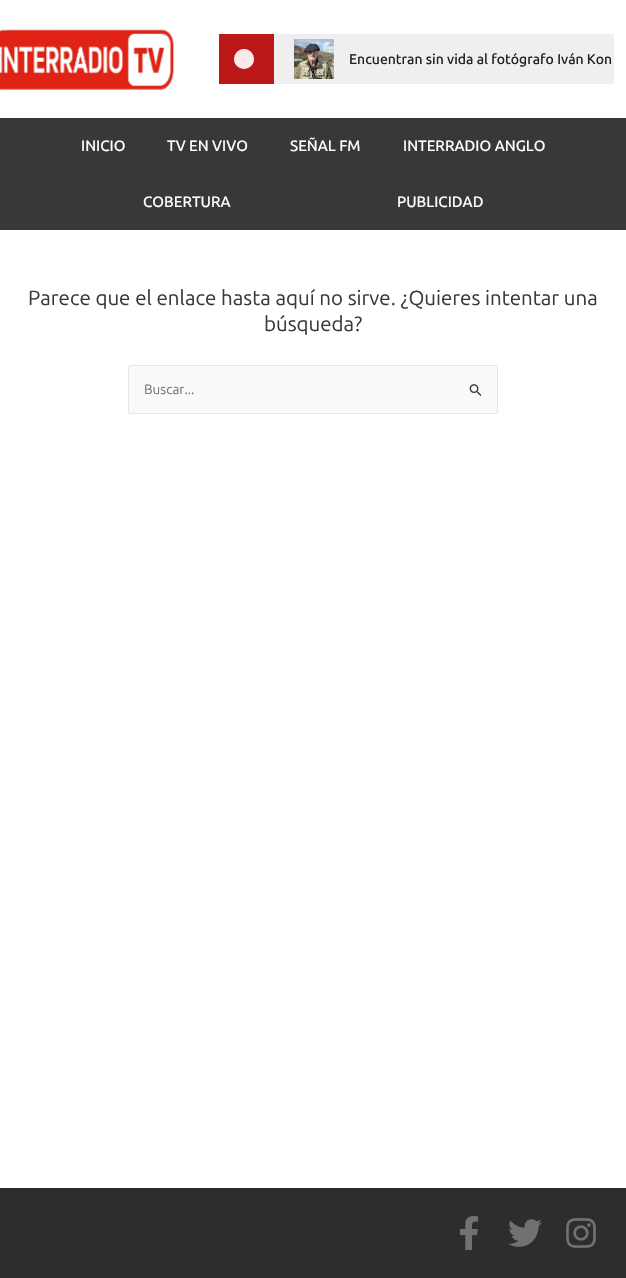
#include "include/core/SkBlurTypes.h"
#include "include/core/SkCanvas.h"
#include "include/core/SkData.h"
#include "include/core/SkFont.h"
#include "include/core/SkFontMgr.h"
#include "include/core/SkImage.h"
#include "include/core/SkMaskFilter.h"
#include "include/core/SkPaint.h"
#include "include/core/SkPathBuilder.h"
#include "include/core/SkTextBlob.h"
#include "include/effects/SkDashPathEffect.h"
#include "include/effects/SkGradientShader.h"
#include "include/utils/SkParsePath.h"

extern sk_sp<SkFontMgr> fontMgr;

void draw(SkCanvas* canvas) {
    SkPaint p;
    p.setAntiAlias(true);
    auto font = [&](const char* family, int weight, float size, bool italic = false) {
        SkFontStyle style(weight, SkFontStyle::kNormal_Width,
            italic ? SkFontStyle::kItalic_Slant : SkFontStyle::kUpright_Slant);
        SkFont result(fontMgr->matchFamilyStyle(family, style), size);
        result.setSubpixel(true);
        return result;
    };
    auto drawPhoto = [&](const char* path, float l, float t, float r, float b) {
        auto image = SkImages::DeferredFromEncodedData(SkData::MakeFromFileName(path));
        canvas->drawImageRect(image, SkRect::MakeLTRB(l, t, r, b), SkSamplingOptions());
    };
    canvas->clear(0xFFFFFFFF);
    drawPhoto("media/1.png", 0, 29, 174, 90);
    p.setColor(0xFFEFEFEF);
    canvas->drawRect(SkRect::MakeLTRB(274, 34, 614, 84), p);
    p.setColor(0xFFBB1919);
    canvas->drawRect(SkRect::MakeLTRB(219, 34, 274, 84), p);
    p.setColor(0xFFEBBABA);
    canvas->drawCircle(244, 59, 10, p);
    p.setColor(0xB3FFFFFF);
    canvas->drawCircle(244, 59, 10, p);
    drawPhoto("media/2.png", 294, 39, 334, 79);
    auto font1 = font("Ubuntu", 500, 14);
    p.setColor(0xFF222222);
    canvas->drawString("Encuentran sin vida al fotógrafo Iván Kon", 349, 64, font1, p);
    p.setColor(0xFF383838);
    canvas->drawRect(SkRect::MakeLTRB(0, 118, 626, 230), p);
    auto font2 = font("Ubuntu", 500, 15);
    p.setColor(0xFFFFFFFF);
    {
        const struct { const char* s; float x, y; } items[] = {
            {"INICIO", 81, 151},
            {"TV EN VIVO", 167, 151},
            {"SEÑAL FM", 290, 151},
            {"INTERRADIO ANGLO", 403, 151},
            {"COBERTURA", 143, 207},
            {"PUBLICIDAD", 397, 207},
        };
        for (auto [s, x, y] : items) {
            canvas->drawString(s, x, y, font2, p);
        }
    }
    auto font3 = font("Ubuntu", 400, 20.5f);
    p.setColor(0xFF3A3A3A);
    canvas->drawString("Parece que el enlace hasta aquí no sirve. ¿Quieres intentar una", 28, 305, font3, p);
    canvas->drawString("búsqueda?", 264, 331, font3, p);
    p.setColor(0xFFFAFAFA);
    canvas->drawRoundRect(SkRect::MakeLTRB(128.5f, 365.5f, 497.5f, 413.5f), 1.5f, 1.5f, p);
    p.setStyle(SkPaint::kStroke_Style);
    p.setStrokeWidth(1);
    p.setColor(0xFFE5E5E5);
    canvas->drawRoundRect(SkRect::MakeLTRB(128.5f, 365.5f, 497.5f, 413.5f), 1.5f, 1.5f, p);
    auto font4 = font("Ubuntu", 400, 13.5f);
    p.setStyle(SkPaint::kFill_Style);
    p.setColor(0xFF757575);
    canvas->drawString("Buscar...", 144, 394, font4, p);
    drawPhoto("media/3.png", 469, 384, 481, 396);
    p.setColor(0xFF2D2D2D);
    canvas->drawRect(SkRect::MakeLTRB(0, 1188, 626, 1278), p);
    drawPhoto("media/4.png", 459, 1216, 479, 1250);
    drawPhoto("media/5.png", 508, 1219, 542, 1247);
    drawPhoto("media/6.png", 566, 1218, 596, 1248);
}
